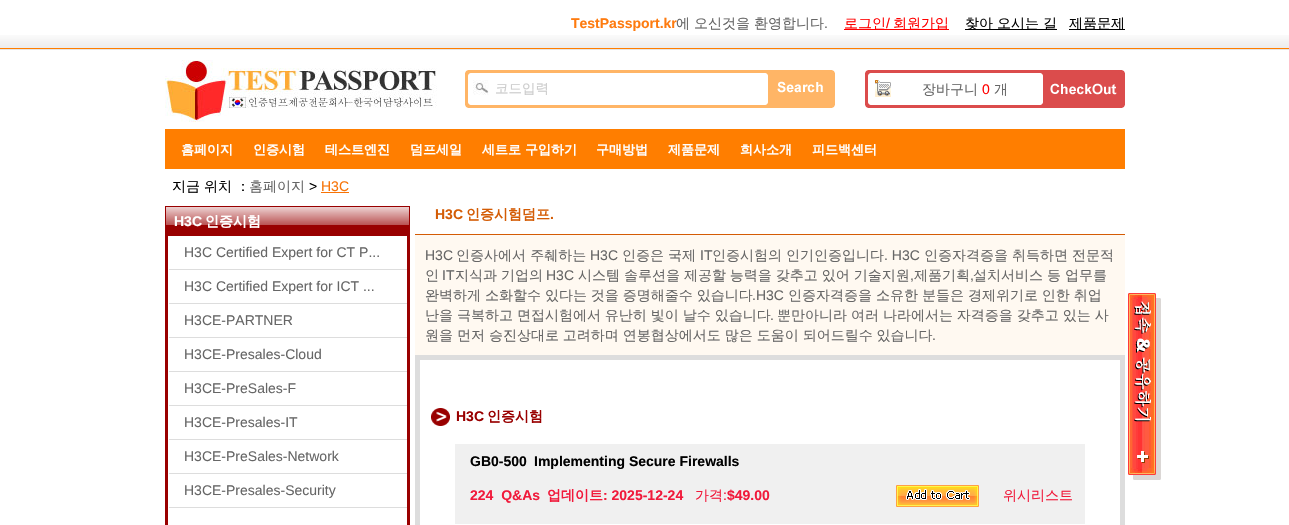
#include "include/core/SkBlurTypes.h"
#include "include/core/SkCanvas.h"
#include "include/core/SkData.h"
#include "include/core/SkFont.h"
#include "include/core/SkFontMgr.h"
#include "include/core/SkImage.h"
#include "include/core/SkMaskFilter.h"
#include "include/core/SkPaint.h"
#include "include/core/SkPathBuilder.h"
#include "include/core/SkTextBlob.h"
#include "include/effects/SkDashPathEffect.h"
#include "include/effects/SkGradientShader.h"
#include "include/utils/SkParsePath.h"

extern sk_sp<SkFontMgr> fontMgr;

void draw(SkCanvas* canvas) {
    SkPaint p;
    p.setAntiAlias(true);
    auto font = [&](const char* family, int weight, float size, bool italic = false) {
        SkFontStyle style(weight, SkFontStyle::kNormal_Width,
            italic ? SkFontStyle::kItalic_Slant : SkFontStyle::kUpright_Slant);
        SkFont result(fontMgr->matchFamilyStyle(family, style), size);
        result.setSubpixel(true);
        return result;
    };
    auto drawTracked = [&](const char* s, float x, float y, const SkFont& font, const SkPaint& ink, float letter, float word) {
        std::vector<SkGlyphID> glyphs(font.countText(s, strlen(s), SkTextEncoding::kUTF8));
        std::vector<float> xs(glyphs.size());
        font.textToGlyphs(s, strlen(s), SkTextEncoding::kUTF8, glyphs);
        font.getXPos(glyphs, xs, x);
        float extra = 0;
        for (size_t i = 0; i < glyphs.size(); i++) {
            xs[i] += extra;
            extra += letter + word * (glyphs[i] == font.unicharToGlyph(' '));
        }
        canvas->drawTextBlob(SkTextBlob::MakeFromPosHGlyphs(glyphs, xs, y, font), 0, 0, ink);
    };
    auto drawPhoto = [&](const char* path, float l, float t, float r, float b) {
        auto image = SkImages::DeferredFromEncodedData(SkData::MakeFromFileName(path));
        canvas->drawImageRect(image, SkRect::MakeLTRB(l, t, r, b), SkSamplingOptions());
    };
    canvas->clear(0xFFFFFFFF);
    drawPhoto("media/1.png", 0, 35, 1289, 50);
    auto font1 = font("Liberation Sans", 700, 14);
    p.setColor(0xFFFE7B0F);
    canvas->drawString("TestPassport.kr", 571, 28, font1, p);
    auto font2 = font("WenQuanYi Zen Hei", 500, 14);
    p.setColor(0xFF666666);
    drawTracked("에 오신것을 환영합니다", 676, 28, font2, p, 0, -0.25f);
    auto font3 = font("Liberation Sans", 400, 14);
    canvas->drawString(".", 824, 28, font3, p);
    p.setColor(0xFFFF0000);
    canvas->drawRect(SkRect::MakeLTRB(844, 29, 949, 30), p);
    canvas->drawString("로그인", 844, 28, font2, p);
    canvas->drawString("/", 886, 28, font3, p);
    canvas->drawString("회원가입", 893, 28, font2, p);
    p.setColor(0xFF000000);
    canvas->drawRect(SkRect::MakeLTRB(965, 29, 1057, 30), p);
    drawTracked("찾아 오시는 길", 965, 28, font2, p, 0, -0.25f);
    canvas->drawRect(SkRect::MakeLTRB(1069, 29, 1125, 30), p);
    canvas->drawString("제품문제", 1069, 28, font2, p);
    drawPhoto("media/2.png", 165, 60, 437, 122);
    drawPhoto("media/3.png", 465, 70, 835, 108);
    auto font4 = font("WenQuanYi Zen Hei", 500, 13.5f);
    p.setColor(0xFFCCCCCC);
    canvas->drawString("코드입력", 495, 93, font4, p);
    drawPhoto("media/4.png", 865, 70, 1125, 108);
    p.setColor(0xFF666666);
    canvas->drawString("장바구니", 922, 94, font2, p);
    p.setColor(0xFFFF0000);
    canvas->drawString("0", 982, 94, font3, p);
    p.setColor(0xFF666666);
    canvas->drawString("개", 994, 94, font2, p);
    p.setColor(0xFFFF7E00);
    canvas->drawRect(SkRect::MakeLTRB(165, 129, 1125, 169), p);
    auto font5 = font("WenQuanYi Zen Hei", 700, 13);
    p.setColor(0xFFFFFFFF);
    {
        const struct { const char* s; float x, y; } items[] = {
            {"홈페이지", 181, 154},
            {"인증시험", 253, 154},
            {"테스트엔진", 325, 154},
            {"덤프세일", 410, 154},
            {"세트로 구입하기", 482, 154},
            {"구매방법", 596, 154},
            {"제품문제", 668, 154},
            {"희사소개", 740, 154},
            {"피드백센터", 812, 154},
        };
        for (auto [s, x, y] : items) {
            canvas->drawString(s, x, y, font5, p);
        }
    }
    p.setColor(0xFF000000);
    drawTracked("지금 위치 ：", 172, 191, font2, p, 0, -0.25f);
    p.setColor(0xFF666666);
    canvas->drawString("홈페이지", 249, 191, font2, p);
    p.setColor(0xFF000000);
    canvas->drawString(">", 309, 191, font3, p);
    p.setColor(0xFFF77306);
    canvas->drawString("H3C", 321, 191, font3, p);
    canvas->drawRect(SkRect::MakeLTRB(321, 192, 349, 193), p);
    drawPhoto("media/5.png", 165, 236, 410, 525);
    drawPhoto("media/6.png", 166, 206, 409, 236);
    p.setColor(0xFF990000);
    canvas->drawRect(SkRect::MakeLTRB(409, 206, 410, 236), p);
    canvas->drawRect(SkRect::MakeLTRB(165, 206, 166, 236), p);
    p.setColor(0xFFFFFFFF);
    canvas->drawString("H3C", 174, 226, font1, p);
    auto font6 = font("WenQuanYi Zen Hei", 700, 14);
    canvas->drawString("인증시험", 205, 226, font6, p);
    p.setColor(0xFFDDDDDD);
    canvas->drawRect(SkRect::MakeLTRB(169, 269, 407, 270), p);
    p.setColor(0xFF666666);
    canvas->drawString("H3C Certified Expert for CT P...", 184, 257, font3, p);
    p.setColor(0xFFDDDDDD);
    canvas->drawRect(SkRect::MakeLTRB(169, 303, 407, 304), p);
    p.setColor(0xFF666666);
    canvas->drawString("H3C Certified Expert for ICT ...", 184, 291, font3, p);
    p.setColor(0xFFDDDDDD);
    canvas->drawRect(SkRect::MakeLTRB(169, 337, 407, 338), p);
    p.setColor(0xFF666666);
    canvas->drawString("H3CE-PARTNER", 184, 325, font3, p);
    p.setColor(0xFFDDDDDD);
    canvas->drawRect(SkRect::MakeLTRB(169, 371, 407, 372), p);
    p.setColor(0xFF666666);
    canvas->drawString("H3CE-Presales-Cloud", 184, 359, font3, p);
    p.setColor(0xFFDDDDDD);
    canvas->drawRect(SkRect::MakeLTRB(169, 405, 407, 406), p);
    p.setColor(0xFF666666);
    canvas->drawString("H3CE-PreSales-F", 184, 393, font3, p);
    p.setColor(0xFFDDDDDD);
    canvas->drawRect(SkRect::MakeLTRB(169, 439, 407, 440), p);
    p.setColor(0xFF666666);
    canvas->drawString("H3CE-Presales-IT", 184, 427, font3, p);
    p.setColor(0xFFDDDDDD);
    canvas->drawRect(SkRect::MakeLTRB(169, 473, 407, 474), p);
    p.setColor(0xFF666666);
    canvas->drawString("H3CE-PreSales-Network", 184, 461, font3, p);
    p.setColor(0xFFDDDDDD);
    canvas->drawRect(SkRect::MakeLTRB(169, 507, 407, 508), p);
    p.setColor(0xFF666666);
    canvas->drawString("H3CE-Presales-Security", 184, 495, font3, p);
    p.setColor(0xFFD45C05);
    canvas->drawRect(SkRect::MakeLTRB(415, 234, 1125, 235), p);
    canvas->drawString("H3C", 435, 219, font1, p);
    canvas->drawString("인증시험덤프", 466, 219, font6, p);
    canvas->drawString(".", 550, 219, font1, p);
    p.setColor(0xFFFFF9F1);
    canvas->drawRect(SkRect::MakeLTRB(415, 235, 1125, 355), p);
    p.setColor(0xFF666666);
    canvas->drawString("H3C", 425, 260, font3, p);
    canvas->drawString("인증사에서 주췌하는", 456, 260, font2, p);
    canvas->drawString("H3C", 590, 260, font3, p);
    canvas->drawString("인증은", 622, 260, font2, p);
    canvas->drawString("국제", 668, 260, font2, p);
    canvas->drawString("IT", 700, 260, font3, p);
    canvas->drawString("인증시험의", 712, 260, font2, p);
    canvas->drawString("인기인증입니다", 786, 260, font2, p);
    canvas->drawString(". H3C", 884, 260, font3, p);
    {
        const struct { const char* s; float x, y; } items[] = {
            {"인증자격증을", 924, 260},
            {"취득하면", 1012, 260},
            {"전문적", 1072, 260},
            {"인", 425, 280},
        };
        for (auto [s, x, y] : items) {
            canvas->drawString(s, x, y, font2, p);
        }
    }
    canvas->drawString("IT", 442, 280, font3, p);
    drawTracked("지식과 기업의", 455, 280, font2, p, 0, -0.25f);
    canvas->drawString("H3C", 546, 280, font3, p);
    drawTracked("시스템 솔루션을 제공할 능력을 갖추고 있어 기술지원", 578, 280, font2, p, 0, -0.25f);
    canvas->drawString(",", 910, 280, font3, p);
    canvas->drawString("제품기획", 914, 280, font2, p);
    canvas->drawString(",", 970, 280, font3, p);
    drawTracked("설치서비스 등 업무를", 973, 280, font2, p, 0, -0.25f);
    drawTracked("완벽하게 소화할수 있다는 것을 증명해줄수 있습니다", 425, 300, font2, p, 0, -0.25f);
    canvas->drawString(".H3C", 752, 300, font3, p);
    canvas->drawString("인증자격증을", 788, 300, font2, p);
    drawTracked("소유한 분들은 경제위기로 인한 취업", 876, 300, font2, p, 0, -0.25f);
    drawTracked("난을 극복하고 면접시험에서 유난히 빛이 날수 있습니다", 425, 320, font2, p, 0, -0.25f);
    canvas->drawString(".", 770, 320, font3, p);
    drawTracked("뿐만아니라 여러 나라에서는 자격증을 갖추고 있는 사", 777, 320, font2, p, 0, -0.25f);
    drawTracked("원을 먼저 승진상대로 고려하며 연봉협상에서도 많은 도움이 되어드릴수 있습니다", 425, 340, font2, p, 0, -0.25f);
    canvas->drawString(".", 932, 340, font3, p);
    p.setStyle(SkPaint::kStroke_Style);
    p.setStrokeWidth(5);
    p.setColor(0xFFDDDDDD);
    canvas->drawRect(SkRect::MakeLTRB(417.5f, 357.5f, 1122.5f, 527.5f), p);
    drawPhoto("media/7.png", 431, 408, 450, 426);
    p.setStyle(SkPaint::kFill_Style);
    p.setColor(0xFF990000);
    canvas->drawString("H3C", 456, 421, font1, p);
    canvas->drawString("인증시험", 487, 421, font6, p);
    p.setColor(0xFFF0F0F0);
    canvas->drawRect(SkRect::MakeLTRB(455, 444, 1085, 524), p);
    p.setColor(0xFF000000);
    canvas->drawString("GB0-500", 470, 466, font1, p);
    canvas->drawString("Implementing Secure Firewalls", 534, 466, font1, p);
    p.setColor(0xFFF11A3B);
    canvas->drawString("224  Q&As", 470, 500, font1, p);
    canvas->drawString("업데이트", 547, 500, font6, p);
    canvas->drawString(": 2025-12-24", 603, 500, font1, p);
    canvas->drawString("가격", 695, 500, font2, p);
    canvas->drawString(":", 723, 500, font3, p);
    canvas->drawString("$49.00", 727, 500, font1, p);
    drawPhoto("media/8.png", 896, 485, 979, 507);
    canvas->drawString("위시리스트", 1003, 500, font2, p);
    drawPhoto("media/9.png", 1128, 293, 1161, 480);
}
